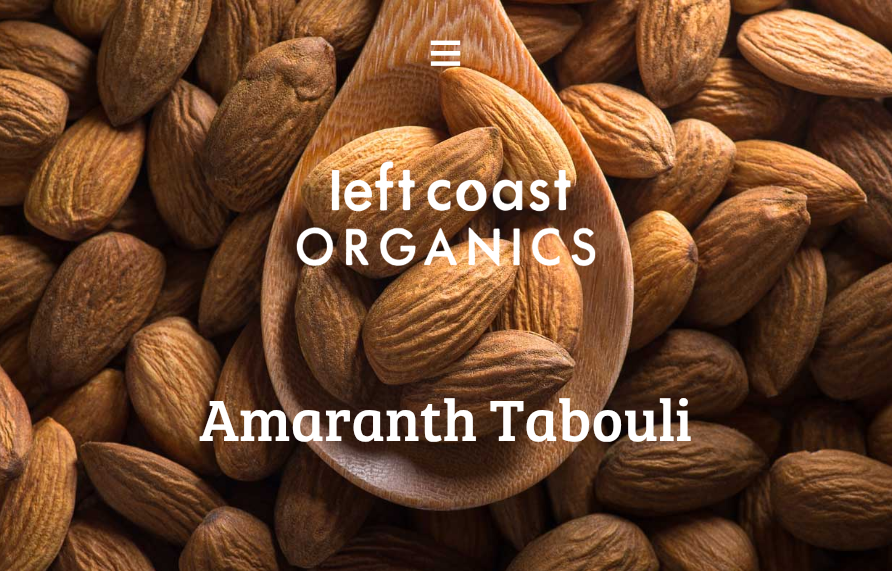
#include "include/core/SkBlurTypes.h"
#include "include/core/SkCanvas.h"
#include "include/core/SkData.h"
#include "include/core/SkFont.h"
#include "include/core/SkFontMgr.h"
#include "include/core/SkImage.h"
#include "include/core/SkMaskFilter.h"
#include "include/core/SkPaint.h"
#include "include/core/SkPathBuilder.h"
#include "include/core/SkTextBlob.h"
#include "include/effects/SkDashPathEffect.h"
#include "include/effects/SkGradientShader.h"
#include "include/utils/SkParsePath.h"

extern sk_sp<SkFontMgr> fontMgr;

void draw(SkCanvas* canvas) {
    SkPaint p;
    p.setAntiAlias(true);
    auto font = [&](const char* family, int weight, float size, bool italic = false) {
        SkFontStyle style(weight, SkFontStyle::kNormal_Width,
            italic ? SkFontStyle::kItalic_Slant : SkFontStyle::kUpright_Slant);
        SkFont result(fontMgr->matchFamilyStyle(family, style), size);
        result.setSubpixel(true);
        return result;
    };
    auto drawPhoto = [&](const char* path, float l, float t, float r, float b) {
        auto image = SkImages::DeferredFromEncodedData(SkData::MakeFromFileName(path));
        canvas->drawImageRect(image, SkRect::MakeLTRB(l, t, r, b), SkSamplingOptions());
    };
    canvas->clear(0xFFFFFFFF);
    drawPhoto("media/1.png", 0, 0, 892, 571);
    auto font1 = font("Liberation Sans", 400, 60);
    p.setColor(0xFFFFFFFF);
    canvas->drawString("≡", 428, 73, font1, p);
    drawPhoto("media/2.png", 296, 160, 596, 266);
    auto font2 = font("Bree Serif", 400, 60);
    canvas->drawString("Amaranth Tabouli", 199, 441, font2, p);
}
